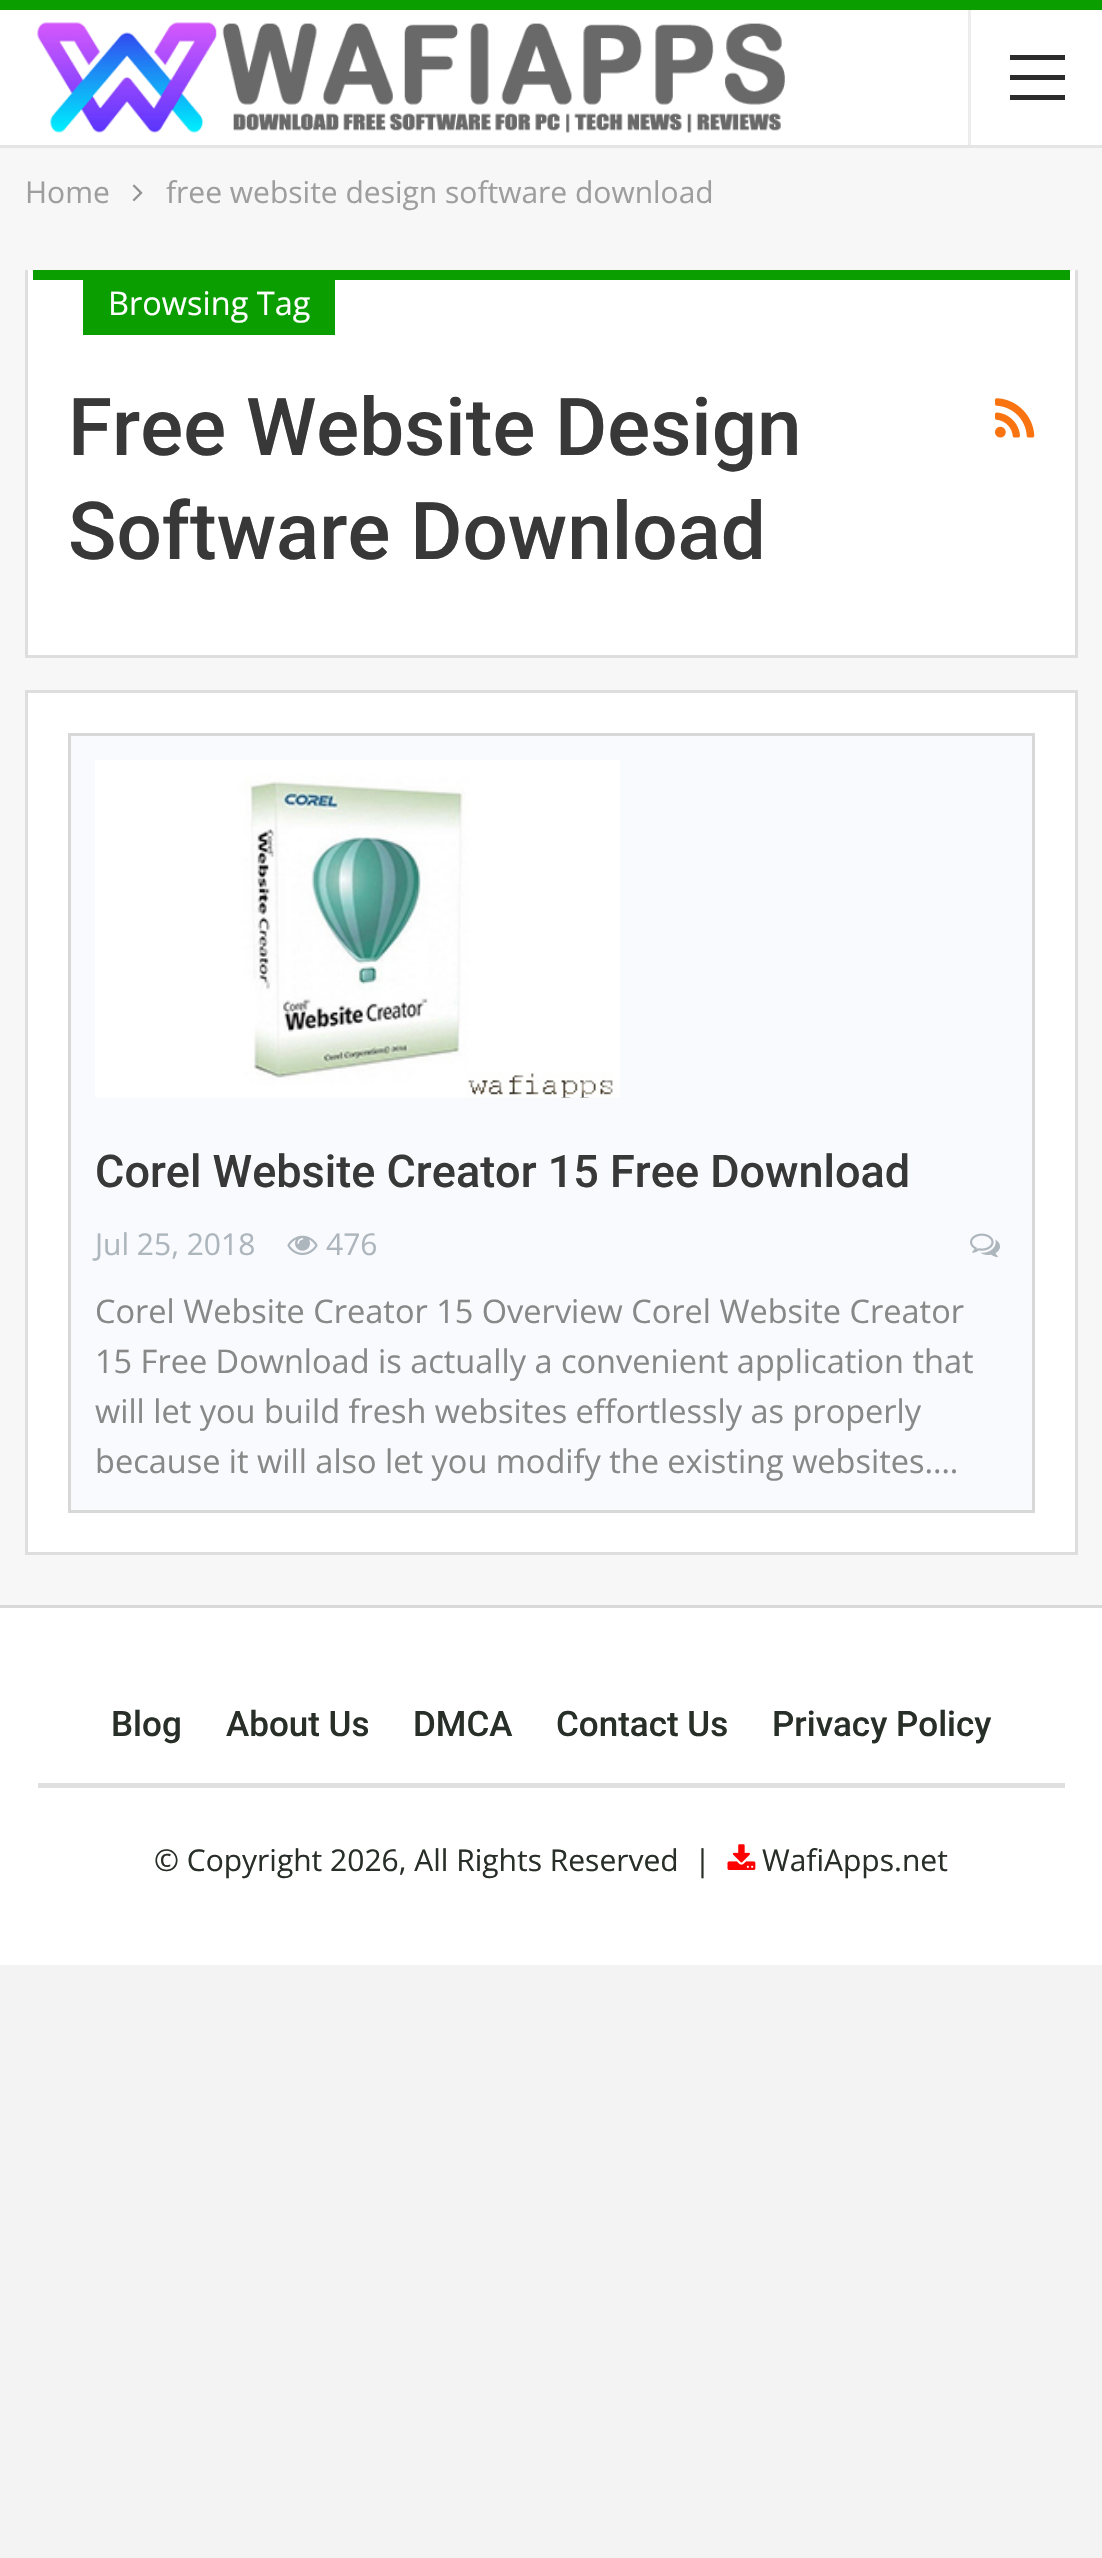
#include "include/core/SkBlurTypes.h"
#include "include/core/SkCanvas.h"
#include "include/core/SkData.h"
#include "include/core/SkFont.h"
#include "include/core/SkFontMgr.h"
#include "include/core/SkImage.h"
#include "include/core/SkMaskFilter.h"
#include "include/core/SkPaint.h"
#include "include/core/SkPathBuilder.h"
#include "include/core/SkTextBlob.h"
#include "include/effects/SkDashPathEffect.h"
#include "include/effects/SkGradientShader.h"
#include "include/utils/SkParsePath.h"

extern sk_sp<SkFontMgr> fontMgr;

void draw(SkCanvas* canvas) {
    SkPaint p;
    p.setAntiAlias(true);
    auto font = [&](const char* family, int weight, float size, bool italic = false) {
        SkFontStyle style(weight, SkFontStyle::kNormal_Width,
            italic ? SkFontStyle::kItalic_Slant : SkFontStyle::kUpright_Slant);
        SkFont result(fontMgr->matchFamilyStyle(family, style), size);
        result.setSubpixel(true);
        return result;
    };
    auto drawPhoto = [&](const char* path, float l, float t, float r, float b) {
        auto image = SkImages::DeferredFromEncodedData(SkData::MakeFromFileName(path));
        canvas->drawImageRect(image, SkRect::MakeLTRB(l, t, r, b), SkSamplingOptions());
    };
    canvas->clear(0xFFF3F3F3);
    {
        const struct { float l, t, r, b; SkColor color; } items[] = {
            {0, 0, 1102, 10, 0xFF0A9E01},
            {0, 148, 1102, 1605, 0xFFF7F7F7},
            {0, 10, 1102, 145, 0xFFFFFFFF},
            {0, 145, 1102, 148, 0xFFE5E5E5},
        };
        for (auto [l, t, r, b, color] : items) {
            p.setColor(color);
            canvas->drawRect(SkRect::MakeLTRB(l, t, r, b), p);
        }
    }
    drawPhoto("media/1.png", 37, 22, 785, 133);
    {
        const struct { float l, t, r, b; SkColor color; } items[] = {
            {968, 10, 971, 145, 0xFFEDEDED},
            {1010, 75, 1065, 80, 0xFF2C2C2C},
            {1010, 55, 1065, 60, 0xFF2C2C2C},
            {1010, 95, 1065, 100, 0xFF2C2C2C},
        };
        for (auto [l, t, r, b, color] : items) {
            p.setColor(color);
            canvas->drawRect(SkRect::MakeLTRB(l, t, r, b), p);
        }
    }
    auto font1 = font("Open Sans", 400, 30);
    p.setColor(0xFF9E9E9E);
    canvas->drawString("Home", 25, 203, font1, p);
    drawPhoto("media/2.png", 132, 184, 143, 202);
    canvas->drawString("free website design software download", 166, 203, font1, p);
    {
        const struct { float l, t, r, b; SkColor color; } items[] = {
            {28, 270, 1075, 655, 0xFFFFFFFF},
            {1075, 270, 1078, 658, 0xFFDEDEDE},
            {25, 655, 1078, 658, 0xFFDEDEDE},
            {25, 270, 28, 658, 0xFFDEDEDE},
            {33, 270, 1070, 280, 0xFF0A9E01},
            {83, 280, 335, 335, 0xFF0A9E01},
        };
        for (auto [l, t, r, b, color] : items) {
            p.setColor(color);
            canvas->drawRect(SkRect::MakeLTRB(l, t, r, b), p);
        }
    }
    auto font2 = font("Open Sans", 400, 32.5f);
    p.setColor(0xFFFFFFFF);
    canvas->drawString("Browsing Tag", 108, 315, font2, p);
    auto font3 = font("Roboto", 500, 80);
    p.setColor(0xFF383838);
    canvas->drawString("Free Website Design", 68, 455, font3, p);
    canvas->drawString("Software Download", 68, 559, font3, p);
    drawPhoto("media/3.png", 995, 398, 1035, 438);
    p.setColor(0xFFFFFFFF);
    canvas->drawRect(SkRect::MakeLTRB(26.5f, 691.5f, 1076.5f, 1553.5f), p);
    p.setStyle(SkPaint::kStroke_Style);
    p.setStrokeWidth(3);
    p.setColor(0xFFDEDEDE);
    canvas->drawRect(SkRect::MakeLTRB(26.5f, 691.5f, 1076.5f, 1553.5f), p);
    p.setStyle(SkPaint::kFill_Style);
    p.setColor(0xFFF9FAFD);
    canvas->drawRect(SkRect::MakeLTRB(69.5f, 734.5f, 1033.5f, 1511.5f), p);
    p.setStyle(SkPaint::kStroke_Style);
    p.setColor(0xFFD8D8D8);
    canvas->drawRect(SkRect::MakeLTRB(69.5f, 734.5f, 1033.5f, 1511.5f), p);
    drawPhoto("media/4.png", 95, 760, 620, 1098);
    auto font4 = font("Roboto", 500, 45);
    p.setStyle(SkPaint::kFill_Style);
    p.setColor(0xFF383838);
    canvas->drawString("Corel Website Creator 15 Free Download", 95, 1187, font4, p);
    p.setColor(0xFFADB5BD);
    canvas->drawString("Jul 25, 2018", 95, 1255, font1, p);
    drawPhoto("media/5.png", 287, 1235, 318, 1255);
    canvas->drawString("476", 326, 1255, font1, p);
    drawPhoto("media/6.png", 970, 1233, 1000, 1258);
    p.setColor(0xFF888888);
    {
        const struct { const char* s; float x, y; } items[] = {
            {"Corel Website Creator 15 Overview Corel Website Creator", 95, 1323},
            {"15 Free Download is actually a convenient application that", 95, 1373},
            {"will let you build fresh websites effortlessly as properly", 95, 1423},
            {"because it will also let you modify the existing websites.…", 95, 1473},
        };
        for (auto [s, x, y] : items) {
            canvas->drawString(s, x, y, font2, p);
        }
    }
    {
        const struct { float l, t, r, b; SkColor color; } items[] = {
            {0, 1608, 1102, 1965, 0xFFFFFFFF},
            {0, 1605, 1102, 1608, 0xFFD9D9D9},
            {38, 1783, 1065, 1788, 0xFFE0E0E0},
        };
        for (auto [l, t, r, b, color] : items) {
            p.setColor(color);
            canvas->drawRect(SkRect::MakeLTRB(l, t, r, b), p);
        }
    }
    auto font5 = font("Roboto", 500, 35);
    p.setColor(0xFF282E28);
    {
        const struct { const char* s; float x, y; } items[] = {
            {"Blog", 111, 1736},
            {"About Us", 226, 1736},
            {"DMCA", 413, 1736},
            {"Contact Us", 556, 1736},
            {"Privacy Policy", 772, 1736},
        };
        for (auto [s, x, y] : items) {
            canvas->drawString(s, x, y, font5, p);
        }
    }
    canvas->drawString("© Copyright 2026, All Rights Reserved  |", 154, 1871, font1, p);
    drawPhoto("media/7.png", 727, 1844, 756, 1870);
    canvas->drawString("WafiApps.net", 762, 1871, font1, p);
}
